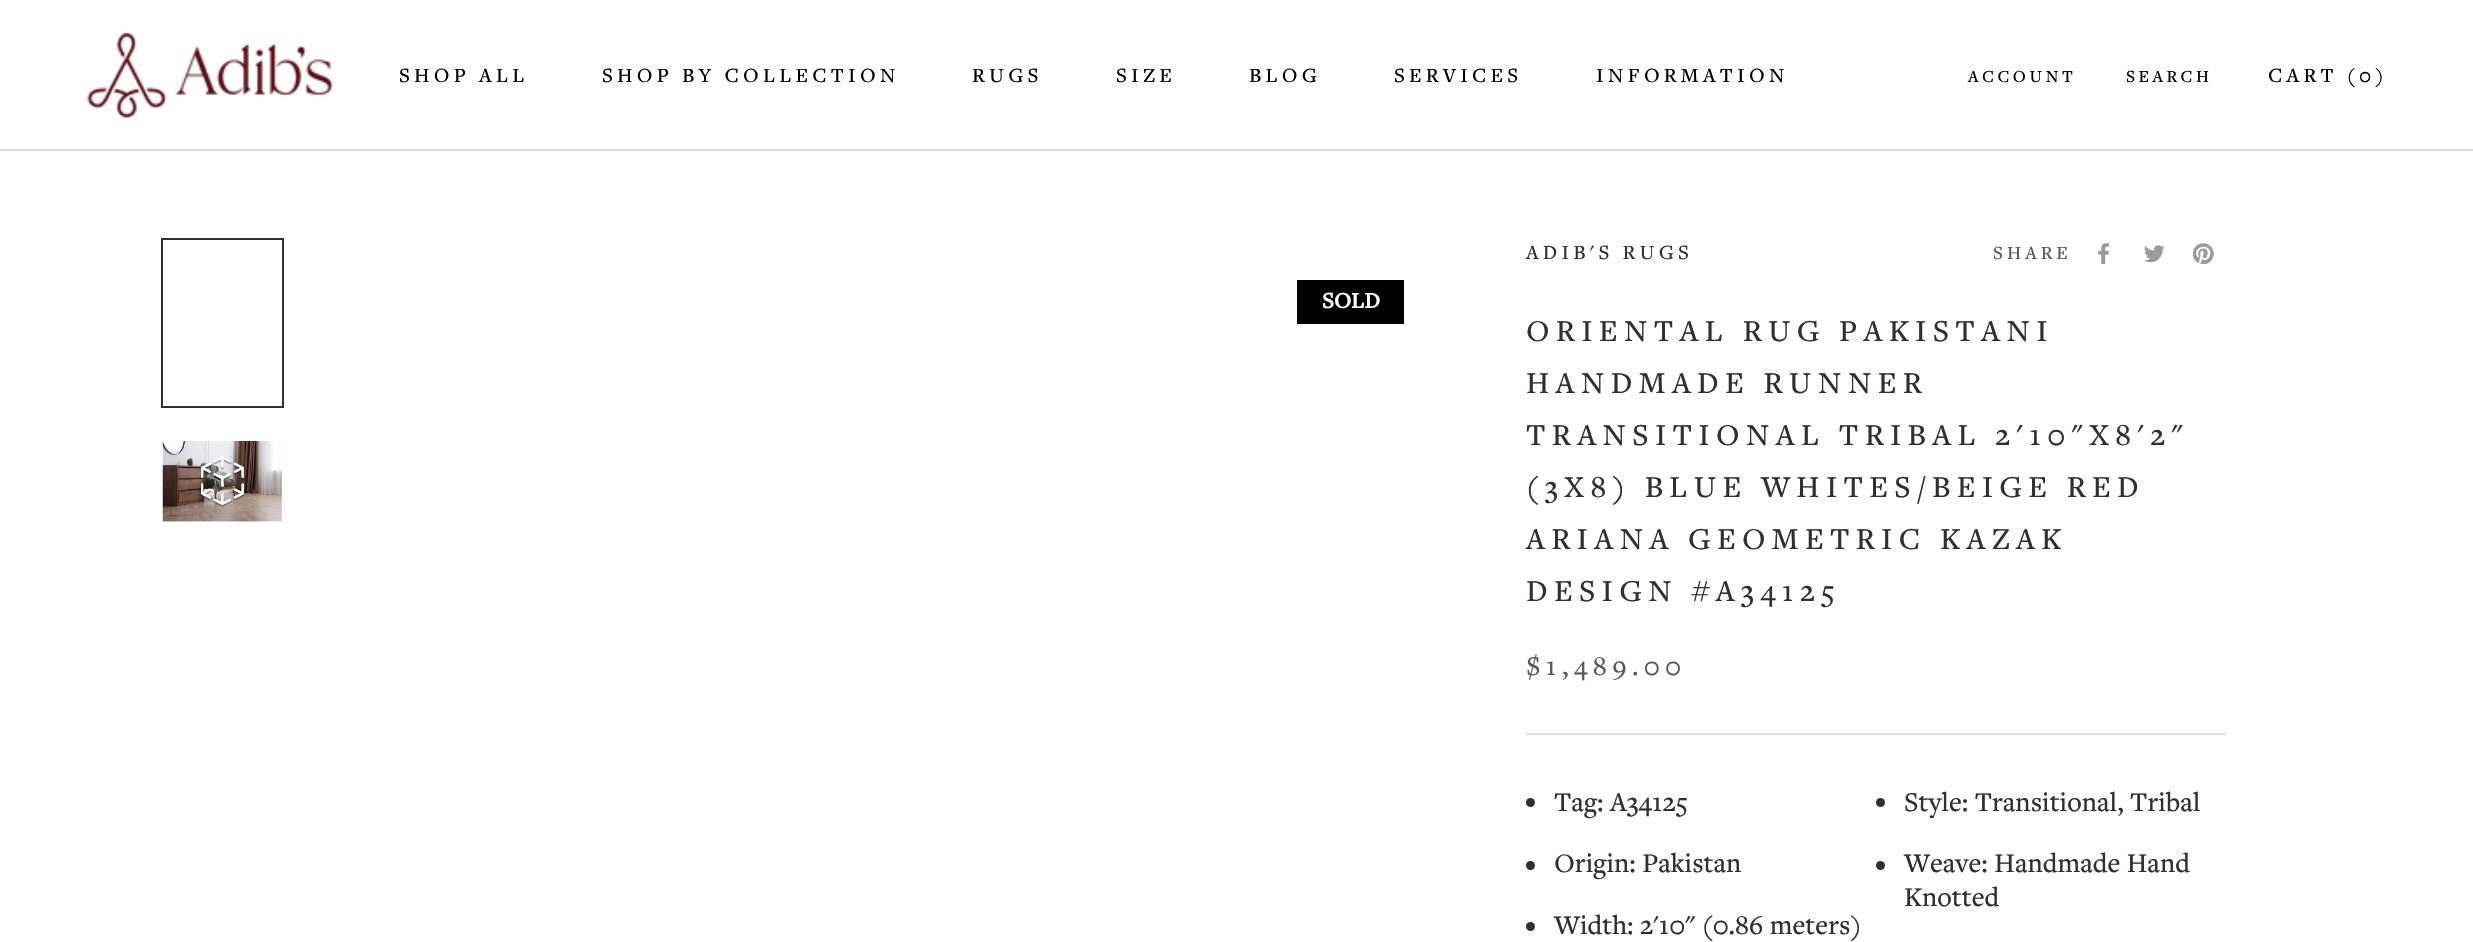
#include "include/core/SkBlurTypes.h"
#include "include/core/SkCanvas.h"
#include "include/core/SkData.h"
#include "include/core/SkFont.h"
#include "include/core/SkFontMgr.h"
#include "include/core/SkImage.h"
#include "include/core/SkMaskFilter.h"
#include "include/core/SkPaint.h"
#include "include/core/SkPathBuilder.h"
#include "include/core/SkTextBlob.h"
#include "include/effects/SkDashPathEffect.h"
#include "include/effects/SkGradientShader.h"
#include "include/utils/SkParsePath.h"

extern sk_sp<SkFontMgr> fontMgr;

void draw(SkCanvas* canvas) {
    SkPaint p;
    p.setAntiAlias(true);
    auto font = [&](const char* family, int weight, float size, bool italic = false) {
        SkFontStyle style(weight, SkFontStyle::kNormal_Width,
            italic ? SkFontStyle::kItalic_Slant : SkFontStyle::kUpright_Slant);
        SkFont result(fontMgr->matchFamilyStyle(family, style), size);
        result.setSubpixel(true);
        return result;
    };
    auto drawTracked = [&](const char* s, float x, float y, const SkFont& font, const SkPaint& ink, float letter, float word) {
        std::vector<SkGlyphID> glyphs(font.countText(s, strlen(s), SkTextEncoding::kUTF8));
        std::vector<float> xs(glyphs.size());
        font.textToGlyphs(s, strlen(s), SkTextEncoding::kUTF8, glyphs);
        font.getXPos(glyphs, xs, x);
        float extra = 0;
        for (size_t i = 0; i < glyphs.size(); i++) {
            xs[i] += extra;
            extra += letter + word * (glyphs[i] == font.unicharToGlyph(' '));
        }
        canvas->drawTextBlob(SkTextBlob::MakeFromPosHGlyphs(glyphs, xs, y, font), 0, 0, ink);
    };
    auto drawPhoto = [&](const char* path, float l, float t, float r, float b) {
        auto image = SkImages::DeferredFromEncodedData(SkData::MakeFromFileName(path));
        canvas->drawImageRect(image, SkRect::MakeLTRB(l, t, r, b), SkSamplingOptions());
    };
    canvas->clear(0xFFFFFFFF);
    p.setColor(0xFFD9D9D9);
    canvas->drawRect(SkRect::MakeLTRB(0, 149, 2473, 151), p);
    drawPhoto("media/1.png", 87, 32, 333, 118);
    auto font1 = font("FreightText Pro", 500, 21);
    p.setColor(0xFF000000);
    {
        const struct { const char* s; float x, y; } items[] = {
            {"SHOP ALL", 399, 82},
            {"SHOP BY COLLECTION", 602, 82},
            {"RUGS", 972, 82},
            {"SIZE", 1116, 82},
            {"BLOG", 1249, 82},
            {"SERVICES", 1394, 82},
            {"INFORMATION", 1596, 82},
        };
        for (auto [s, x, y] : items) {
            drawTracked(s, x, y, font1, p, 4.25f, 0);
        }
    }
    auto font2 = font("FreightText Pro", 500, 17.5f);
    drawTracked("ACCOUNT", 1968, 82, font2, p, 3.5f, 0);
    drawTracked("SEARCH", 2126, 82, font2, p, 3.5f, 0);
    drawTracked("CART (0)", 2268, 82, font1, p, 4.25f, 0);
    p.setStyle(SkPaint::kStroke_Style);
    p.setStrokeWidth(2);
    p.setColor(0xFF303030);
    canvas->drawRect(SkRect::MakeLTRB(162, 239, 283, 407), p);
    drawPhoto("media/2.png", 162, 441, 282, 522);
    p.setStyle(SkPaint::kFill_Style);
    p.setColor(0xFF000000);
    canvas->drawRect(SkRect::MakeLTRB(1297, 280, 1404, 324), p);
    auto font3 = font("FreightText Pro", 700, 23);
    p.setColor(0xFFFFFFFF);
    canvas->drawString("SOLD", 1322, 308, font3, p);
    p.setColor(0xFFE0E0E0);
    canvas->drawRect(SkRect::MakeLTRB(1526, 733, 2226, 735), p);
    p.setColor(0xFF303030);
    drawTracked("ADIB'S RUGS", 1526, 259, font1, p, 4.25f, 0);
    auto font4 = font("FreightText Pro", 500, 19.25f);
    p.setColor(0xFF595959);
    drawTracked("SHARE", 1993, 259, font4, p, 4, 0);
    drawPhoto("media/3.png", 2097, 243, 2110, 264);
    drawPhoto("media/4.png", 2144, 245, 2165, 263);
    drawPhoto("media/5.png", 2193, 243, 2214, 264);
    auto font5 = font("FreightText Pro", 500, 31.5f);
    p.setColor(0xFF303030);
    {
        const struct { const char* s; float x, y; } items[] = {
            {"ORIENTAL RUG PAKISTANI", 1526, 341},
            {"HANDMADE RUNNER", 1526, 393},
            {"TRANSITIONAL TRIBAL 2'10\"X8'2\"", 1526, 445},
            {"(3X8) BLUE WHITES/BEIGE RED", 1526, 497},
            {"ARIANA GEOMETRIC KAZAK", 1526, 549},
            {"DESIGN #A34125", 1526, 601},
        };
        for (auto [s, x, y] : items) {
            drawTracked(s, x, y, font5, p, 6.3f, 0);
        }
    }
    auto font6 = font("FreightText Pro", 500, 28);
    p.setColor(0xFF595959);
    drawTracked("$1,489.00", 1526, 675, font6, p, 5.5f, 0);
    p.setColor(0xFF303030);
    canvas->drawCircle(1530.5f, 802.5f, 4.5f, p);
    canvas->drawString("Tag: A34125", 1554, 811, font6, p);
    canvas->drawCircle(1880.5f, 802.5f, 4.5f, p);
    canvas->drawString("Style: Transitional, Tribal", 1904, 811, font6, p);
    canvas->drawCircle(1530.5f, 865.5f, 4.5f, p);
    canvas->drawString("Origin: Pakistan", 1554, 872, font6, p);
    canvas->drawCircle(1880.5f, 865.5f, 4.5f, p);
    canvas->drawString("Weave: Handmade Hand", 1904, 872, font6, p);
    canvas->drawString("Knotted", 1904, 906, font6, p);
    canvas->drawCircle(1530.5f, 926.5f, 4.5f, p);
    canvas->drawString("Width: 2'10\" (0.86 meters)", 1554, 934, font6, p);
}
